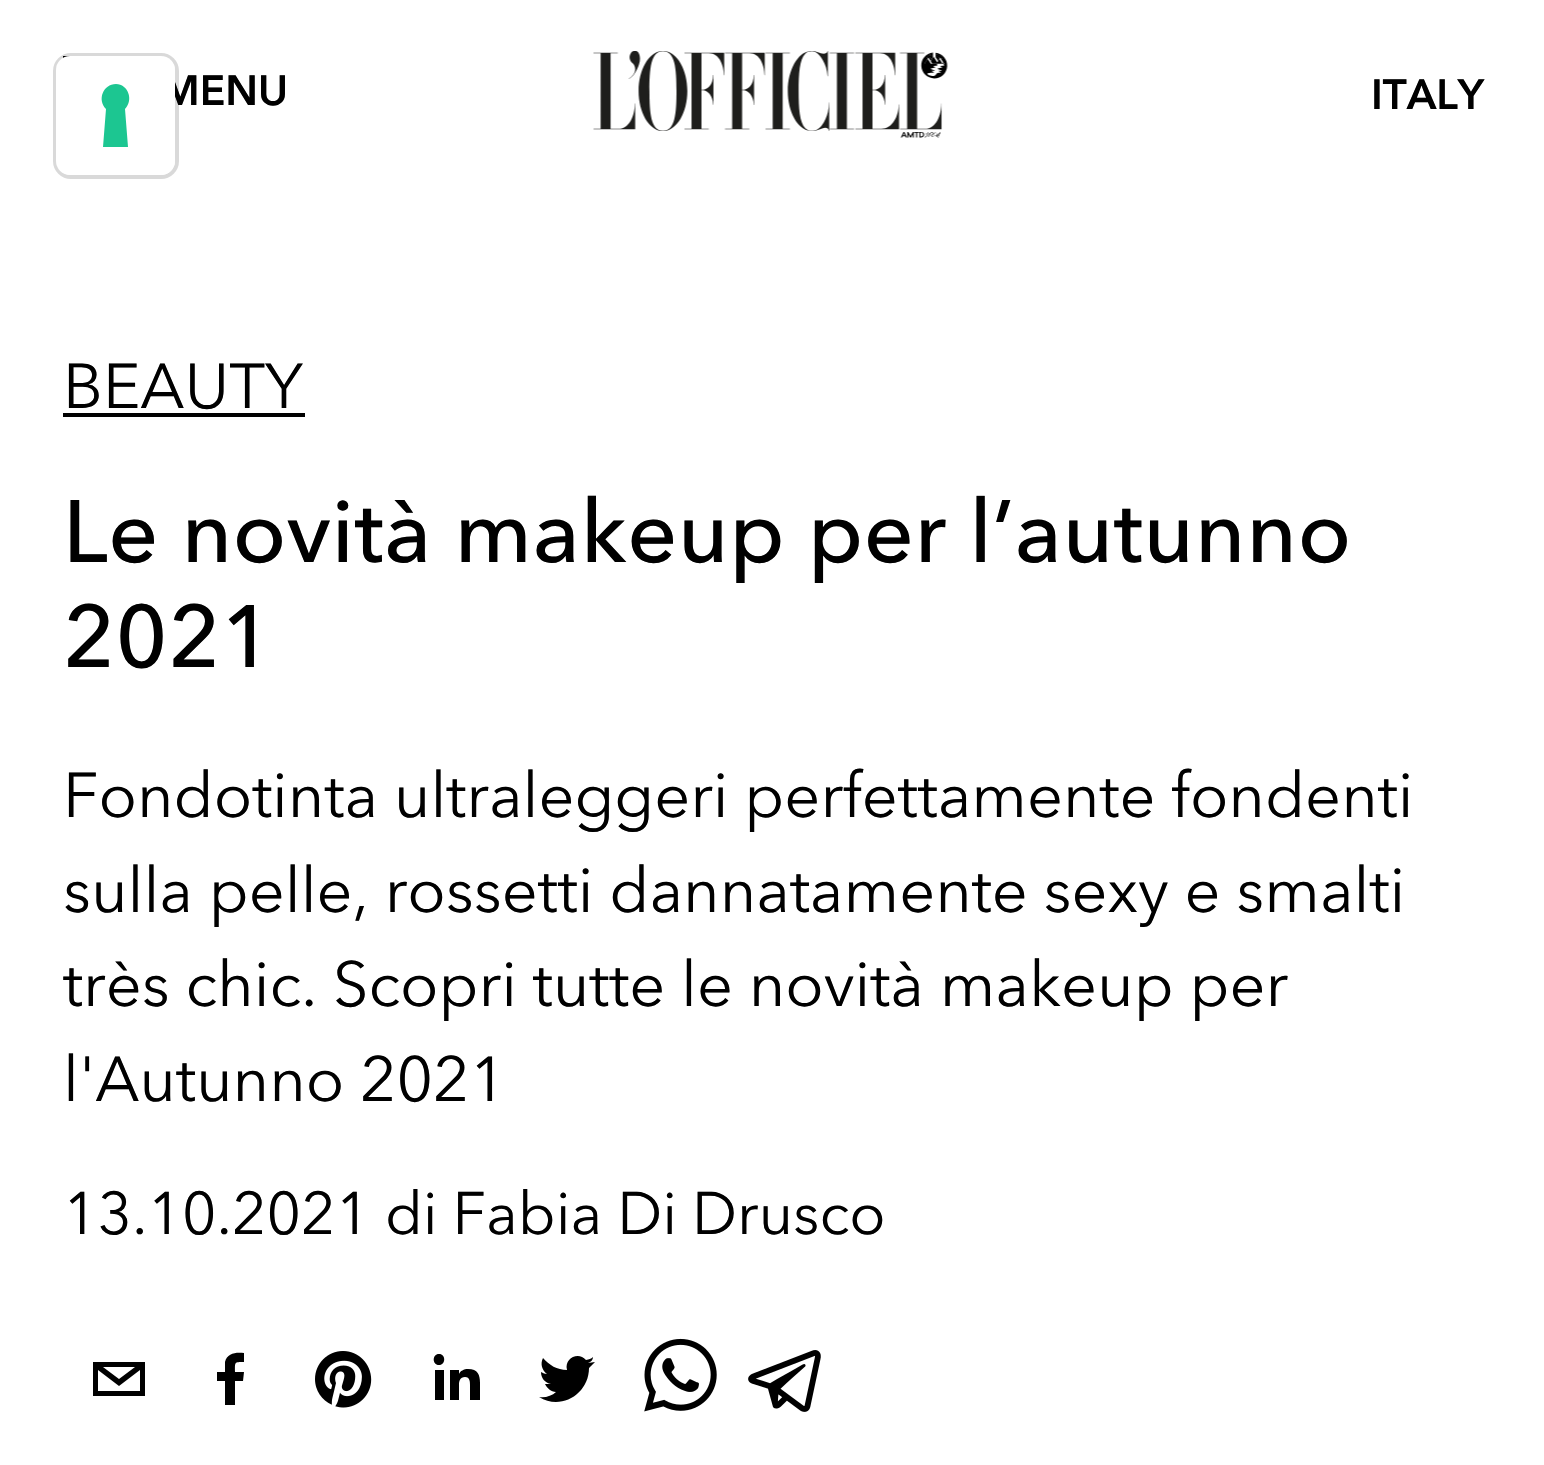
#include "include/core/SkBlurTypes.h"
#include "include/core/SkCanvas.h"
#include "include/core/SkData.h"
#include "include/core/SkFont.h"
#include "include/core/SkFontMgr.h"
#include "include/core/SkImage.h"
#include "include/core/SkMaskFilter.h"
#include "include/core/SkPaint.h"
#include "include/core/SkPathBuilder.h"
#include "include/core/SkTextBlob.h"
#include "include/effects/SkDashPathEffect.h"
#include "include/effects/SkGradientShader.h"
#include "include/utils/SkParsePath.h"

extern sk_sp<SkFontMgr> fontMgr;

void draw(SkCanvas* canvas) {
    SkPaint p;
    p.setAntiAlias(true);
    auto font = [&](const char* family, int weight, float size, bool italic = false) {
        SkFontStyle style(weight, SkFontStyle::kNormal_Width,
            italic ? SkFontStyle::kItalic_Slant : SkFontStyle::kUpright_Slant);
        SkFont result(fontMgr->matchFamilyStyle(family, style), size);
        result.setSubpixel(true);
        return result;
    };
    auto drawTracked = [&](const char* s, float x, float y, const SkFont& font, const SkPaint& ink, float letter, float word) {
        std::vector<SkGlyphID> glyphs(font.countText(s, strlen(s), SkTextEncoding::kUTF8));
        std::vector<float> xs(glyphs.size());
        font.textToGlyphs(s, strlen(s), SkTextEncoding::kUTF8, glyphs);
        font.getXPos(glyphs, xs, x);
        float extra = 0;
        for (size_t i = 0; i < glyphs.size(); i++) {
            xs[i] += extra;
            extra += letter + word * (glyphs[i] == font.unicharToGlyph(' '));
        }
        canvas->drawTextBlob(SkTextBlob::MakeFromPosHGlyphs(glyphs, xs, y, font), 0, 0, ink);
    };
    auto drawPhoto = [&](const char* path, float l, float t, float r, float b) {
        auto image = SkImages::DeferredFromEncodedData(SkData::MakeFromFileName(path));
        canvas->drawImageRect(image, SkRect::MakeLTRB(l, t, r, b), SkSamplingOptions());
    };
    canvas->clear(0xFFFFFFFF);
    p.setColor(0xFF000000);
    canvas->drawPath(SkPathBuilder().moveTo(122, 65).lineTo(126, 65).lineTo(126, 56).lineTo(63, 56).lineTo(63, 65).close().moveTo(122, 92).lineTo(126, 92).lineTo(126, 83).lineTo(63, 83).lineTo(63, 92).close().moveTo(122, 119).lineTo(126, 119).lineTo(126, 110).lineTo(63, 110).lineTo(63, 119).close().detach(), p);
    auto font1 = font("Avenir Next", 700, 42);
    canvas->drawString("MENU", 161, 105, font1, p);
    p.setStyle(SkPaint::kStroke_Style);
    p.setStrokeWidth(4);
    p.setColor(0x26000000);
    canvas->drawRoundRect(SkRect::MakeLTRB(55, 55, 177, 177), 16, 16, p);
    p.setStyle(SkPaint::kFill_Style);
    p.setColor(0xFFFFFFFF);
    canvas->drawRoundRect(SkRect::MakeLTRB(56, 56, 175, 175), 14, 14, p);
    p.setColor(0xFF1CC691);
    canvas->drawPath(SkPathBuilder(SkPathFillType::kEvenOdd).moveTo(116, 84).cubicTo(128, 84, 134, 100, 125, 109).lineTo(128, 147).lineTo(103, 147).lineTo(106, 109).cubicTo(97, 100, 103, 84, 116, 84).close().detach(), p);
    drawPhoto("media/1.png", 593, 51, 948, 138);
    p.setColor(0xFF000000);
    canvas->drawString("ITALY", 1371, 109, font1, p);
    auto font2 = font("Avenir Next", 400, 63);
    canvas->drawString("BEAUTY", 63, 408, font2, p);
    canvas->drawRect(SkRect::MakeLTRB(63, 413, 305, 417), p);
    auto font3 = font("Avenir Next", 500, 87.5f);
    drawTracked("Le novità makeup per l’autunno", 63, 562, font3, p, 0.55f, 0);
    drawTracked("2021", 63, 667, font3, p, 0.55f, 0);
    {
        const struct { const char* s; float x, y; } items[] = {
            {"Fondotinta ultraleggeri perfettamente fondenti", 63, 817},
            {"sulla pelle, rossetti dannatamente sexy e smalti", 63, 912},
            {"très chic. Scopri tutte le novità makeup per", 63, 1006},
            {"l'Autunno 2021", 63, 1101},
        };
        for (auto [s, x, y] : items) {
            canvas->drawString(s, x, y, font2, p);
        }
    }
    auto font4 = font("Avenir Next", 400, 59.5f);
    canvas->drawString("13.10.2021 di Fabia Di Drusco", 63, 1234, font4, p);
    canvas->drawPath(SkPathBuilder().moveTo(93, 1362).lineTo(93, 1396).lineTo(145, 1396).lineTo(145, 1362).close().moveTo(135, 1367).lineTo(119, 1379).lineTo(103, 1367).close().moveTo(98, 1391).lineTo(98, 1370).lineTo(119, 1386).lineTo(140, 1370).lineTo(140, 1391).close().detach(), p);
    canvas->drawPath(SkPathBuilder().moveTo(235, 1405).lineTo(235, 1381).lineTo(243, 1381).lineTo(244, 1372).lineTo(235, 1372).cubicTo(235, 1362, 234, 1362, 244, 1362).lineTo(244, 1353).cubicTo(236, 1352, 227, 1353, 225, 1362).lineTo(225, 1372).lineTo(217, 1372).lineTo(217, 1381).lineTo(225, 1381).lineTo(225, 1405).close().detach(), p);
    drawPhoto("media/2.png", 315, 1351, 372, 1408);
    canvas->drawPath(SkPathBuilder().moveTo(435, 1400).lineTo(444, 1400).lineTo(444, 1370).lineTo(435, 1370).close().moveTo(439, 1354).cubicTo(432, 1354, 432, 1365, 439, 1365).cubicTo(446, 1365, 446, 1354, 439, 1354).close().moveTo(468, 1369).cubicTo(464, 1369, 460, 1371, 459, 1374).lineTo(459, 1370).lineTo(450, 1370).lineTo(450, 1400).lineTo(459, 1400).lineTo(459, 1385).cubicTo(459, 1381, 460, 1377, 465, 1377).cubicTo(470, 1377, 470, 1382, 470, 1385).lineTo(470, 1400).lineTo(480, 1400).lineTo(480, 1383).cubicTo(480, 1375, 478, 1369, 468, 1369).close().detach(), p);
    canvas->drawPath(SkPathBuilder().moveTo(595, 1362).lineTo(588, 1363).cubicTo(591, 1362, 593, 1360, 593, 1357).cubicTo(591, 1359, 589, 1359, 586, 1360).cubicTo(578, 1351, 564, 1359, 567, 1370).cubicTo(557, 1370, 549, 1365, 543, 1358).cubicTo(540, 1364, 542, 1370, 547, 1374).cubicTo(545, 1374, 543, 1373, 541, 1372).cubicTo(541, 1378, 545, 1383, 551, 1384).lineTo(545, 1384).cubicTo(547, 1388, 551, 1392, 556, 1392).cubicTo(552, 1396, 545, 1398, 539, 1397).cubicTo(561, 1411, 589, 1394, 589, 1368).close().detach(), p);
    drawPhoto("media/3.png", 644, 1338, 717, 1412);
    drawPhoto("media/4.png", 748, 1350, 821, 1412);
}
